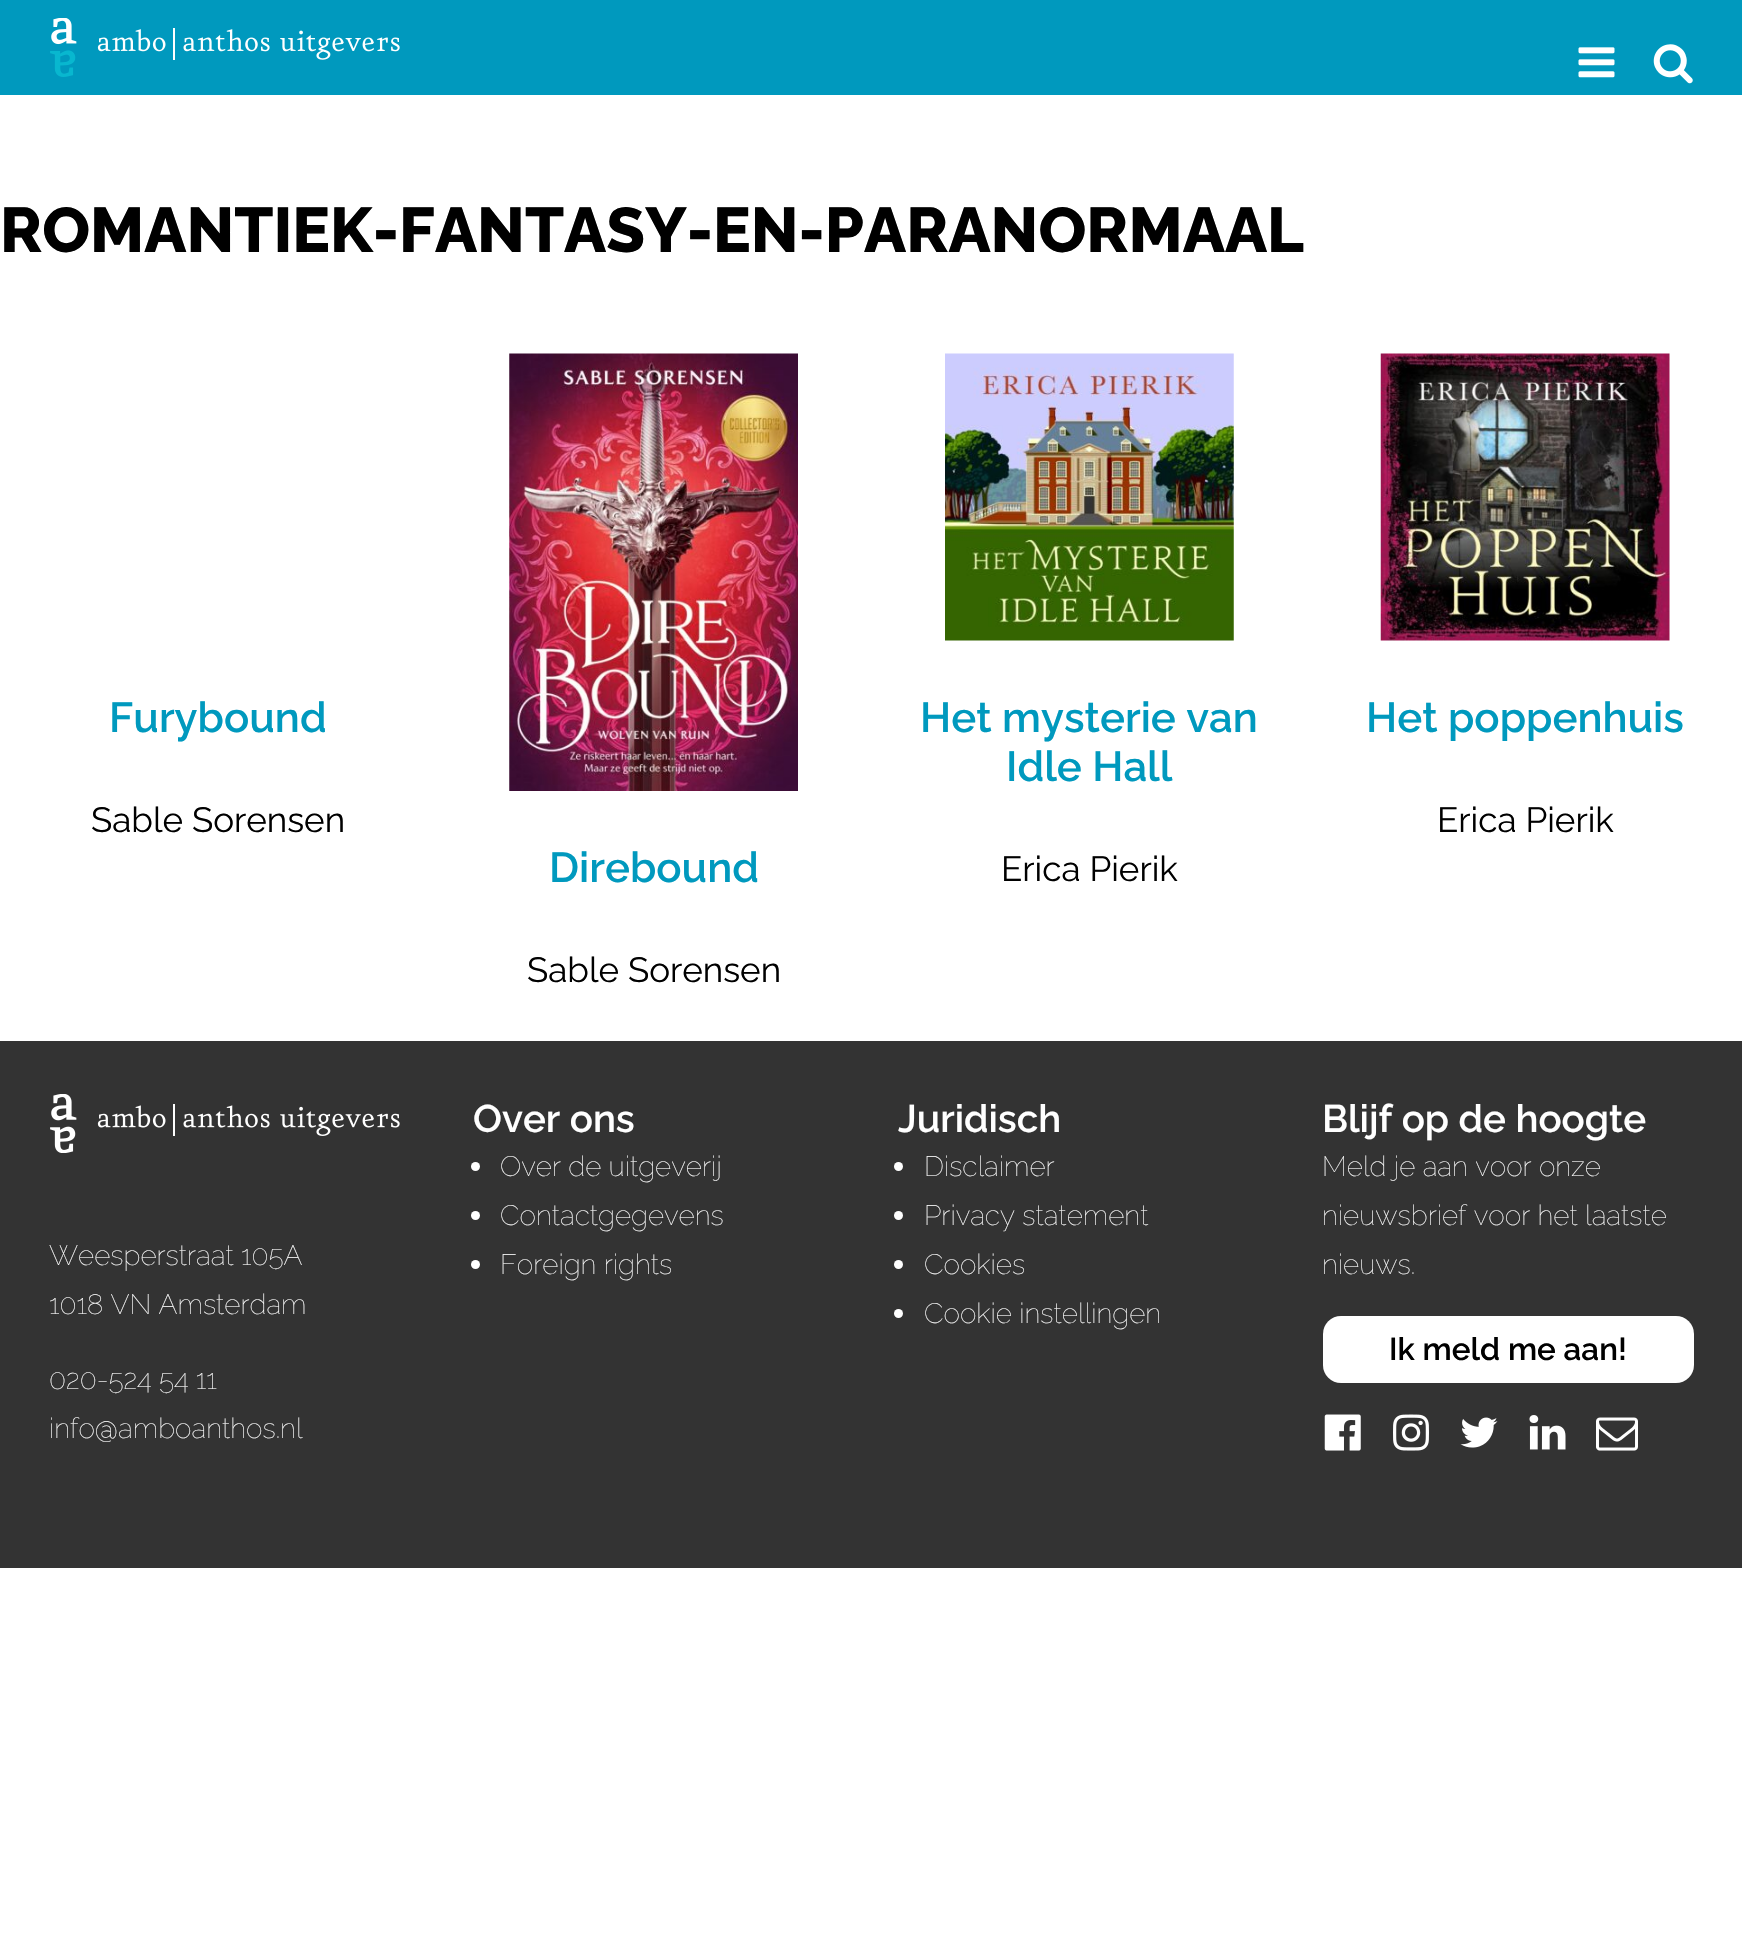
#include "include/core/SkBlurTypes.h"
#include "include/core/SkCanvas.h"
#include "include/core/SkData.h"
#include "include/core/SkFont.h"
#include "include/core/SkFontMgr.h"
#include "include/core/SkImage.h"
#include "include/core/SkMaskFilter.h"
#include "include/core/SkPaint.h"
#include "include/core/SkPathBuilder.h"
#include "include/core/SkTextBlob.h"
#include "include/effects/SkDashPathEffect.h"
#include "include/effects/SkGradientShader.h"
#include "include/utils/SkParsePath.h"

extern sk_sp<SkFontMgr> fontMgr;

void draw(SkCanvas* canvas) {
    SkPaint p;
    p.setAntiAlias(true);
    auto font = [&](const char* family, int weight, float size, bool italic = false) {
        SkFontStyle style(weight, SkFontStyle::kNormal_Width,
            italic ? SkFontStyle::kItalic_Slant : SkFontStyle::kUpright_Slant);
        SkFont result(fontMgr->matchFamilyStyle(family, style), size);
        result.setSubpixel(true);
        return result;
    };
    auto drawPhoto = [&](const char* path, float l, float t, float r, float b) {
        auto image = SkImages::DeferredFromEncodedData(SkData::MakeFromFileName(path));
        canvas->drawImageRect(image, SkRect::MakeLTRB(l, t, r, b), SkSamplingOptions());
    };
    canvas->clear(0xFFFFFFFF);
    p.setColor(0xFF0099BE);
    canvas->drawRect(SkRect::MakeLTRB(0, 0, 1742, 95), p);
    drawPhoto("media/1.png", 50, 18, 400, 77);
    drawPhoto("media/2.png", 1578, 47, 1615, 78);
    drawPhoto("media/3.png", 1653, 44, 1693, 84);
    auto font1 = font("Raleway", 800, 63);
    p.setColor(0xFF000000);
    canvas->drawString("ROMANTIEK-FANTASY-EN-PARANORMAAL", 0, 252, font1, p);
    auto font2 = font("Raleway", 600, 42);
    p.setColor(0xFF0099BE);
    canvas->drawString("Furybound", 109, 732, font2, p);
    auto font3 = font("Raleway", 400, 35);
    p.setColor(0xFF000000);
    canvas->drawString("Sable Sorensen", 91, 832, font3, p);
    drawPhoto("media/4.png", 945, 353, 1234, 641);
    p.setColor(0xFF0099BE);
    canvas->drawString("Het mysterie van", 920, 732, font2, p);
    canvas->drawString("Idle Hall", 1006, 781, font2, p);
    p.setColor(0xFF000000);
    canvas->drawString("Erica Pierik", 1001, 881, font3, p);
    drawPhoto("media/5.png", 1380, 353, 1670, 641);
    p.setColor(0xFF0099BE);
    canvas->drawString("Het poppenhuis", 1366, 732, font2, p);
    p.setColor(0xFF000000);
    canvas->drawString("Erica Pierik", 1437, 832, font3, p);
    drawPhoto("media/6.png", 509, 353, 798, 791);
    p.setColor(0xFF0099BE);
    canvas->drawString("Direbound", 549, 882, font2, p);
    p.setColor(0xFF000000);
    canvas->drawString("Sable Sorensen", 527, 982, font3, p);
    p.setColor(0xFF333333);
    canvas->drawRect(SkRect::MakeLTRB(0, 1041, 1742, 1568), p);
    auto font4 = font("Raleway", 600, 38.5f);
    p.setColor(0xFFFFFFFF);
    canvas->drawString("Over ons", 473, 1132, font4, p);
    canvas->drawCircle(475.5f, 1166.5f, 4.5f, p);
    auto font5 = font("Raleway", 100, 28);
    canvas->drawString("Over de uitgeverij", 500, 1176, font5, p);
    canvas->drawCircle(475.5f, 1215.5f, 4.5f, p);
    canvas->drawString("Contactgegevens", 500, 1225, font5, p);
    canvas->drawCircle(475.5f, 1264.5f, 4.5f, p);
    canvas->drawString("Foreign rights", 500, 1274, font5, p);
    canvas->drawString("Juridisch", 898, 1132, font4, p);
    canvas->drawCircle(898.5f, 1166.5f, 4.5f, p);
    canvas->drawString("Disclaimer", 924, 1176, font5, p);
    canvas->drawCircle(898.5f, 1215.5f, 4.5f, p);
    canvas->drawString("Privacy statement", 924, 1225, font5, p);
    canvas->drawCircle(898.5f, 1264.5f, 4.5f, p);
    canvas->drawString("Cookies", 924, 1274, font5, p);
    canvas->drawCircle(898.5f, 1313.5f, 4.5f, p);
    canvas->drawString("Cookie instellingen", 924, 1323, font5, p);
    canvas->drawString("Blijf op de hoogte", 1322, 1132, font4, p);
    {
        const struct { const char* s; float x, y; } items[] = {
            {"Meld je aan voor onze", 1322, 1176},
            {"nieuwsbrief voor het laatste", 1322, 1225},
            {"nieuws.", 1322, 1274},
        };
        for (auto [s, x, y] : items) {
            canvas->drawString(s, x, y, font5, p);
        }
    }
    canvas->drawRoundRect(SkRect::MakeLTRB(1323, 1316, 1694, 1383), 18, 18, p);
    auto font6 = font("Raleway", 600, 31.5f);
    p.setColor(0xFF000000);
    canvas->drawString("Ik meld me aan!", 1389, 1360, font6, p);
    drawPhoto("media/7.png", 1324, 1414, 1361, 1451);
    drawPhoto("media/8.png", 1393, 1414, 1429, 1451);
    drawPhoto("media/9.png", 1460, 1417, 1498, 1448);
    drawPhoto("media/10.png", 1529, 1415, 1566, 1450);
    drawPhoto("media/11.png", 1596, 1417, 1638, 1451);
    drawPhoto("media/12.png", 50, 1094, 400, 1153);
    p.setColor(0xFFFFFFFF);
    {
        const struct { const char* s; float x, y; } items[] = {
            {"Weesperstraat 105A", 49, 1265},
            {"1018 VN Amsterdam", 49, 1314},
            {"020-524 54 11", 49, 1389},
            {"info@amboanthos.nl", 49, 1438},
        };
        for (auto [s, x, y] : items) {
            canvas->drawString(s, x, y, font5, p);
        }
    }
}
